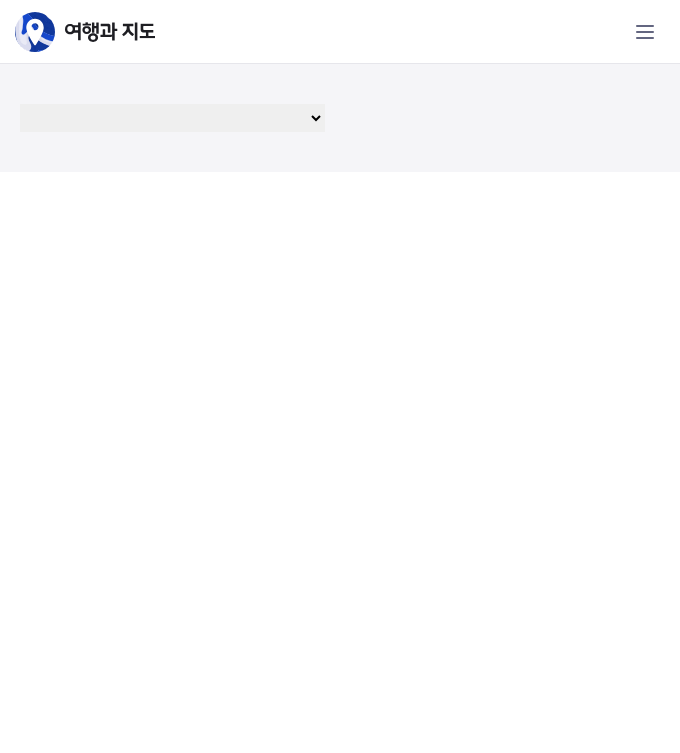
#include "include/core/SkBlurTypes.h"
#include "include/core/SkCanvas.h"
#include "include/core/SkData.h"
#include "include/core/SkFont.h"
#include "include/core/SkFontMgr.h"
#include "include/core/SkImage.h"
#include "include/core/SkMaskFilter.h"
#include "include/core/SkPaint.h"
#include "include/core/SkPathBuilder.h"
#include "include/core/SkTextBlob.h"
#include "include/effects/SkDashPathEffect.h"
#include "include/effects/SkGradientShader.h"
#include "include/utils/SkParsePath.h"

extern sk_sp<SkFontMgr> fontMgr;

void draw(SkCanvas* canvas) {
    SkPaint p;
    p.setAntiAlias(true);
    auto drawPhoto = [&](const char* path, float l, float t, float r, float b) {
        auto image = SkImages::DeferredFromEncodedData(SkData::MakeFromFileName(path));
        canvas->drawImageRect(image, SkRect::MakeLTRB(l, t, r, b), SkSamplingOptions());
    };
    canvas->clear(0xFFFFFFFF);
    p.setColor(0xFFE6E6EB);
    canvas->drawRect(SkRect::MakeLTRB(0, 63, 680, 64), p);
    drawPhoto("media/1.png", 15, 12, 55, 52);
    drawPhoto("media/2.png", 65, 22, 155, 42);
    drawPhoto("media/3.png", 636, 25, 654, 39);
    p.setColor(0xFFF5F5F8);
    canvas->drawRect(SkRect::MakeLTRB(0, 64, 680, 172), p);
    p.setColor(0xFFEFEFEF);
    canvas->drawRect(SkRect::MakeLTRB(20, 104, 325, 132), p);
    p.setStyle(SkPaint::kStroke_Style);
    p.setStrokeWidth(2);
    p.setColor(0xFF000000);
    canvas->drawPath(SkPathBuilder().moveTo(312, 116).lineTo(316, 120).lineTo(320, 116).detach(), p);
}
